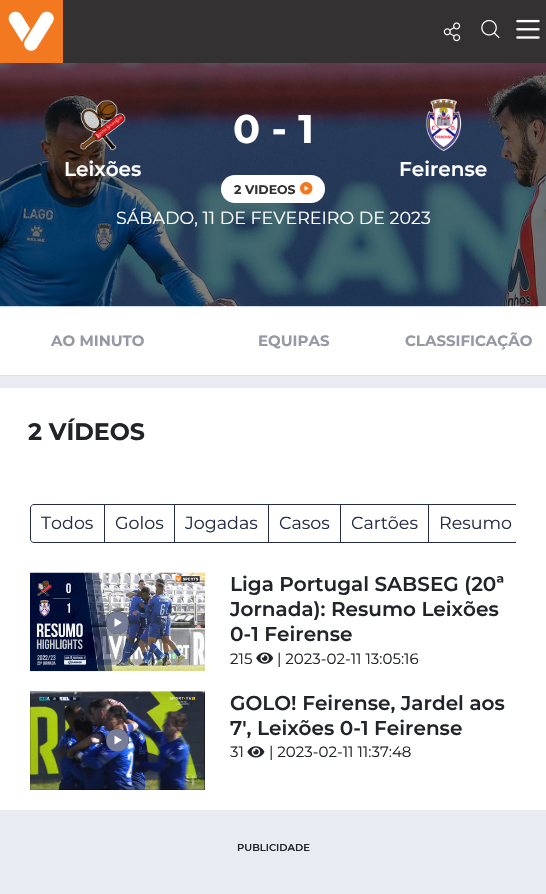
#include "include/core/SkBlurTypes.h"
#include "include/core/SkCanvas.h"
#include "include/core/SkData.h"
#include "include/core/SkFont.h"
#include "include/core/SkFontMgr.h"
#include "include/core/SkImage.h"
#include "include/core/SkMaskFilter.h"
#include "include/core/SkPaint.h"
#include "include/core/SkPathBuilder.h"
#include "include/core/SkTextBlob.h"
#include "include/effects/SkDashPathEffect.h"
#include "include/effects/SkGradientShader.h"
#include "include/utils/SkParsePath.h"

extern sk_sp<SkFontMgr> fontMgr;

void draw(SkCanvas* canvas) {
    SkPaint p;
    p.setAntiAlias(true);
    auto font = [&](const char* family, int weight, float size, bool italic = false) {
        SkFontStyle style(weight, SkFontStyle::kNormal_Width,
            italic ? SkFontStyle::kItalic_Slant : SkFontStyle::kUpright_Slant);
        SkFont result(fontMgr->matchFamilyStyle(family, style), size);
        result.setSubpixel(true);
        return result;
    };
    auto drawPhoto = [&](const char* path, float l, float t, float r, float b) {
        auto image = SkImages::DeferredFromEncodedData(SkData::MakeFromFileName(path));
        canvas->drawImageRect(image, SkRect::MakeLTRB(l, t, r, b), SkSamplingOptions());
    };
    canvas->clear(0xFFFFFFFF);
    p.setColor(0xFF333132);
    canvas->drawRect(SkRect::MakeLTRB(63, 0, 546, 63), p);
    p.setColor(0xFFF37920);
    canvas->drawRect(SkRect::MakeLTRB(0, 0, 63, 63), p);
    drawPhoto("media/1.png", 8, 11, 54, 51);
    drawPhoto("media/2.png", 443, 22, 461, 42);
    drawPhoto("media/3.png", 481, 19, 500, 39);
    drawPhoto("media/4.png", 516, 19, 540, 39);
    drawPhoto("media/5.png", 0, 63, 546, 307);
    drawPhoto("media/6.png", 80, 100, 126, 151);
    auto font1 = font("Montserrat", 600, 20);
    p.setColor(0xFFFFFFFF);
    canvas->drawString("Leixões", 64, 176, font1, p);
    auto font2 = font("Montserrat", 700, 40);
    canvas->drawString("0 - 1", 233, 143, font2, p);
    canvas->drawRoundRect(SkRect::MakeLTRB(221, 175, 325, 203), 14, 14, p);
    auto font3 = font("Montserrat", 700, 12.5f);
    p.setColor(0xFF333132);
    canvas->drawString("2 VIDEOS", 234, 194, font3, p);
    drawPhoto("media/7.png", 300, 182, 313, 195);
    drawPhoto("media/8.png", 425, 99, 462, 151);
    p.setColor(0xFFFFFFFF);
    canvas->drawString("Feirense", 399, 176, font1, p);
    auto font4 = font("Montserrat", 400, 17.5f);
    canvas->drawString("SÁBADO, 11 DE FEVEREIRO DE 2023", 116, 224, font4, p);
    p.setColor(0xFFDEE2E6);
    canvas->drawRect(SkRect::MakeLTRB(0, 375, 546, 376), p);
    auto font5 = font("Montserrat", 700, 15);
    p.setColor(0xFF9499A3);
    {
        const struct { const char* s; float x, y; } items[] = {
            {"AO MINUTO", 51, 346},
            {"EQUIPAS", 258, 346},
            {"CLASSIFICAÇÃO", 405, 346},
        };
        for (auto [s, x, y] : items) {
            canvas->drawString(s, x, y, font5, p);
        }
    }
    p.setColor(0xFFE8EBF1);
    canvas->drawRect(SkRect::MakeLTRB(0, 376, 546, 388), p);
    auto font6 = font("Montserrat", 700, 23.75f);
    p.setColor(0xFF212529);
    canvas->drawString("2 VÍDEOS", 28, 440, font6, p);
    p.setStyle(SkPaint::kStroke_Style);
    p.setStrokeWidth(1);
    p.setColor(0xFF252C46);
    canvas->drawPath(SkPathBuilder().moveTo(34, 504.5f).lineTo(104.5f, 504.5f).lineTo(104.5f, 542.5f).lineTo(34, 542.5f).cubicTo(32, 542.5f, 30.5f, 541, 30.5f, 539).lineTo(30.5f, 508).cubicTo(30.5f, 506, 32, 504.5f, 34, 504.5f).close().detach(), p);
    p.setStyle(SkPaint::kFill_Style);
    canvas->drawString("Todos", 41, 529, font4, p);
    p.setStyle(SkPaint::kStroke_Style);
    canvas->drawRect(SkRect::MakeLTRB(104.5f, 504.5f, 174.5f, 542.5f), p);
    p.setStyle(SkPaint::kFill_Style);
    canvas->drawString("Golos", 115, 529, font4, p);
    p.setStyle(SkPaint::kStroke_Style);
    canvas->drawRect(SkRect::MakeLTRB(174.5f, 504.5f, 268.5f, 542.5f), p);
    p.setStyle(SkPaint::kFill_Style);
    canvas->drawString("Jogadas", 185, 529, font4, p);
    p.setStyle(SkPaint::kStroke_Style);
    canvas->drawRect(SkRect::MakeLTRB(268.5f, 504.5f, 340.5f, 542.5f), p);
    p.setStyle(SkPaint::kFill_Style);
    canvas->drawString("Casos", 279, 529, font4, p);
    p.setStyle(SkPaint::kStroke_Style);
    canvas->drawRect(SkRect::MakeLTRB(340.5f, 504.5f, 428.5f, 542.5f), p);
    p.setStyle(SkPaint::kFill_Style);
    canvas->drawString("Cartões", 351, 529, font4, p);
    canvas->save();
    canvas->clipRect(SkRect::MakeLTRB(30, 504, 516, 543));
    p.setStyle(SkPaint::kStroke_Style);
    canvas->drawPath(SkPathBuilder().moveTo(428.5f, 504.5f).lineTo(520, 504.5f).cubicTo(522, 504.5f, 523.5f, 506, 523.5f, 508).lineTo(523.5f, 539).cubicTo(523.5f, 541, 522, 542.5f, 520, 542.5f).lineTo(428.5f, 542.5f).close().detach(), p);
    canvas->restore();
    p.setStyle(SkPaint::kFill_Style);
    canvas->drawString("Resumo", 439, 529, font4, p);
    drawPhoto("media/9.png", 30, 572, 205, 672);
    {
        const SkColor colors[] = {0xFFFFFFFF, 0xFFFFFFFF, 0xFF333132, 0xFF333132};
        const float stops[] = {0.15f, 0.3f, 0.51f, 0.74f};
        p.setShader(SkGradientShader::MakeRadial({118, 623}, 16, colors, stops, 4, SkTileMode::kClamp));
        p.setAlpha(255);
    }
    canvas->drawCircle(117.5f, 622.5f, 11.5f, p);
    p.setShader(nullptr);
    p.setColor(0xFF777D96);
    canvas->drawPath(SkPathBuilder().moveTo(117.5f, 611.5f).cubicTo(132.5f, 611.5f, 132.5f, 634, 117.5f, 634).cubicTo(102.5f, 634, 102.5f, 611.5f, 117.5f, 611.5f).close().moveTo(122, 622.5f).lineTo(114.5f, 618).lineTo(114.5f, 627).close().detach(), p);
    p.setColor(0xFF212529);
    {
        const struct { const char* s; float x, y; } items[] = {
            {"Liga Portugal SABSEG (20ª", 230, 591},
            {"Jornada): Resumo Leixões", 230, 616},
            {"0-1 Feirense", 230, 641},
        };
        for (auto [s, x, y] : items) {
            canvas->drawString(s, x, y, font1, p);
        }
    }
    auto font7 = font("Montserrat", 400, 15);
    canvas->drawString("215", 230, 664, font7, p);
    drawPhoto("media/10.png", 256, 652, 274, 664);
    canvas->drawString("| 2023-02-11 13:05:16", 277, 664, font7, p);
    drawPhoto("media/11.png", 30, 691, 205, 790);
    {
        const SkColor colors[] = {0xFFFFFFFF, 0xFFFFFFFF, 0xFF333132, 0xFF333132};
        const float stops[] = {0.15f, 0.3f, 0.51f, 0.74f};
        p.setShader(SkGradientShader::MakeRadial({118, 740}, 16, colors, stops, 4, SkTileMode::kClamp));
        p.setAlpha(255);
    }
    canvas->drawRoundRect(SkRect::MakeLTRB(106, 729, 129, 751), 11, 11, p);
    p.setShader(nullptr);
    p.setColor(0xFF777D96);
    canvas->drawPath(SkPathBuilder().moveTo(117.5f, 729).cubicTo(132.5f, 729, 132.5f, 751.5f, 117.5f, 751.5f).cubicTo(102.5f, 751.5f, 102.5f, 729, 117.5f, 729).close().moveTo(122, 740).lineTo(114.5f, 735.5f).lineTo(114.5f, 744.5f).close().detach(), p);
    p.setColor(0xFF212529);
    canvas->drawString("GOLO! Feirense, Jardel aos", 230, 710, font1, p);
    canvas->drawString("7', Leixões 0-1 Feirense", 230, 735, font1, p);
    canvas->drawString("31", 230, 757, font7, p);
    drawPhoto("media/12.png", 247, 746, 265, 758);
    canvas->drawString("| 2023-02-11 11:37:48", 269, 757, font7, p);
    p.setColor(0xFFE8EBF1);
    canvas->drawRect(SkRect::MakeLTRB(0, 810, 546, 894), p);
    auto font8 = font("Montserrat", 600, 10);
    p.setColor(0xFF212529);
    canvas->drawString("PUBLICIDADE", 237, 851, font8, p);
}
